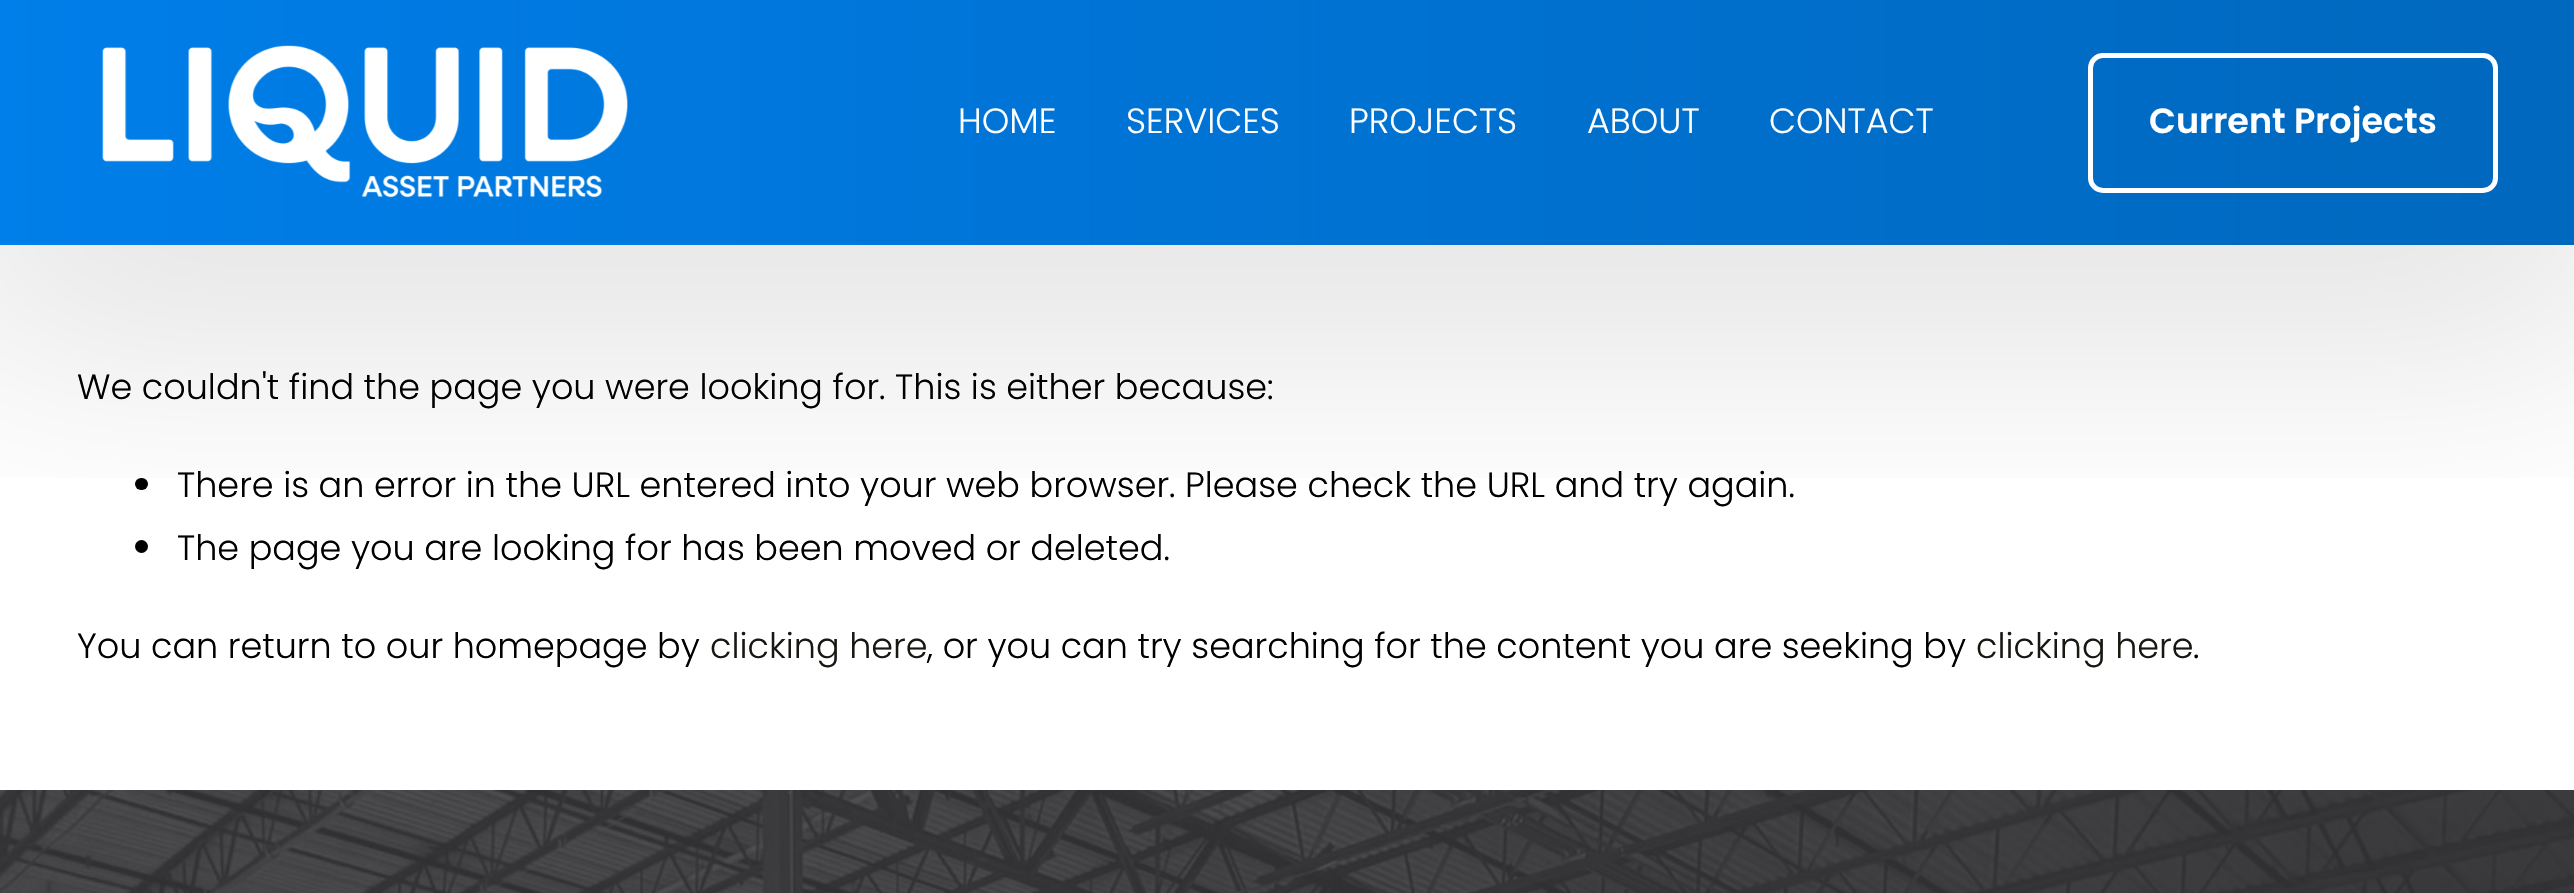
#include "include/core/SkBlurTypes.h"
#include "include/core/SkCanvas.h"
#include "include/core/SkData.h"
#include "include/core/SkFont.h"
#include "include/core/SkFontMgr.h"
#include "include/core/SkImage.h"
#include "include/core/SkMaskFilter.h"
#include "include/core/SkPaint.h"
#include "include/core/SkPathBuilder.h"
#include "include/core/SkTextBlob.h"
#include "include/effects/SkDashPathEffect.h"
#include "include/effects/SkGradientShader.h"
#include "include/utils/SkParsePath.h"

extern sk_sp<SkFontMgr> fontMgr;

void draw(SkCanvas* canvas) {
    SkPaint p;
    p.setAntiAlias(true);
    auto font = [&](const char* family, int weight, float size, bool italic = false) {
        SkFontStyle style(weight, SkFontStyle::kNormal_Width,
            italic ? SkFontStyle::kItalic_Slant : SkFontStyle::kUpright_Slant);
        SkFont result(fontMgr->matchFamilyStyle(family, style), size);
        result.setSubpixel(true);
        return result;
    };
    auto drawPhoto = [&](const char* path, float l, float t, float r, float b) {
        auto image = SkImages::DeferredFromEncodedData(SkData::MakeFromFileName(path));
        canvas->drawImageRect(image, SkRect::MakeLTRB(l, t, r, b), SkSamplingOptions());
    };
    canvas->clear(0xFFFFFFFF);
    drawPhoto("media/1.png", 0, 0, 2574, 245);
    p.setColor(0xFF000000);
    canvas->drawRoundRect(SkRect::MakeLTRB(135, 478, 148, 490), 6, 6, p);
    canvas->drawCircle(141.5f, 546.5f, 6.5f, p);
    canvas->save();
    canvas->clipRect(SkRect::MakeLTRB(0, 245, 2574, 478));
    p.setColor(0x26000000);
    p.setMaskFilter(SkMaskFilter::MakeBlur(kNormal_SkBlurStyle, 149));
    canvas->drawRect(SkRect::MakeLTRB(-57, -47, 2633, 313), p);
    p.setMaskFilter(nullptr);
    canvas->restore();
    drawPhoto("media/2.png", 102, 45, 628, 198);
    auto font1 = font("Poppins", 300, 35);
    p.setColor(0xFFFFFFFF);
    {
        const struct { const char* s; float x, y; } items[] = {
            {"HOME", 958, 133},
            {"SERVICES", 1126, 133},
            {"PROJECTS", 1349, 133},
            {"ABOUT", 1587, 133},
            {"CONTACT", 1769, 133},
        };
        for (auto [s, x, y] : items) {
            canvas->drawString(s, x, y, font1, p);
        }
    }
    p.setStyle(SkPaint::kStroke_Style);
    p.setStrokeWidth(5);
    canvas->drawRoundRect(SkRect::MakeLTRB(2090.5f, 55.5f, 2495.5f, 190.5f), 12.5f, 12.5f, p);
    auto font2 = font("Poppins", 600, 35);
    p.setStyle(SkPaint::kFill_Style);
    canvas->drawString("Current Projects", 2149, 133, font2, p);
    p.setColor(0xFF000000);
    {
        const struct { const char* s; float x, y; } items[] = {
            {"We couldn't find the page you were looking for. This is either because:", 77, 399},
            {"There is an error in the URL entered into your web browser. Please check the URL and try again.", 177, 497},
            {"The page you are looking for has been moved or deleted.", 177, 560},
            {"You can return to our homepage by", 77, 658},
        };
        for (auto [s, x, y] : items) {
            canvas->drawString(s, x, y, font1, p);
        }
    }
    p.setColor(0xFF181712);
    canvas->drawString("clicking here", 710, 658, font1, p);
    p.setColor(0xFF000000);
    canvas->drawString(", or you can try searching for the content you are seeking by", 927, 658, font1, p);
    p.setColor(0xFF181712);
    canvas->drawString("clicking here", 1976, 658, font1, p);
    p.setColor(0xFF000000);
    canvas->drawString(".", 2193, 658, font1, p);
    drawPhoto("media/3.png", 0, 790, 2574, 893);
}
